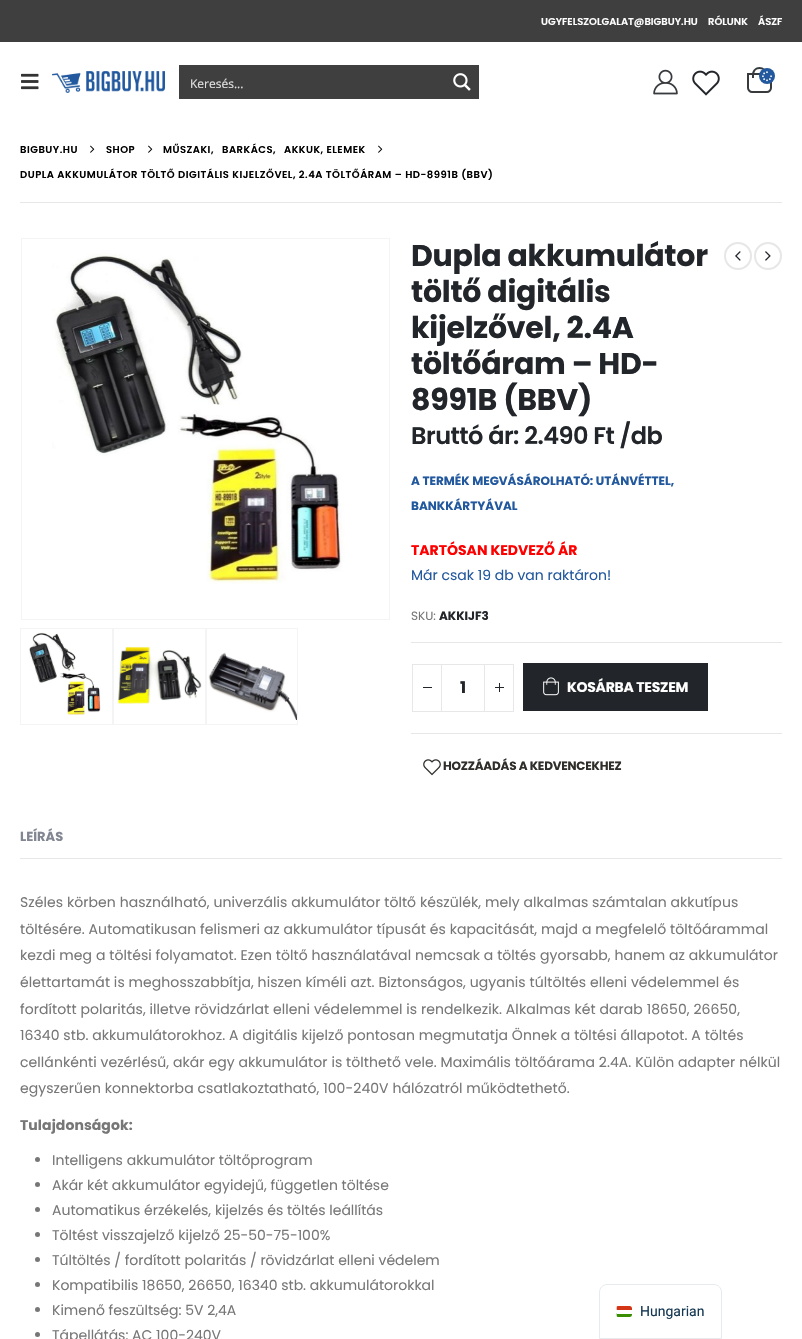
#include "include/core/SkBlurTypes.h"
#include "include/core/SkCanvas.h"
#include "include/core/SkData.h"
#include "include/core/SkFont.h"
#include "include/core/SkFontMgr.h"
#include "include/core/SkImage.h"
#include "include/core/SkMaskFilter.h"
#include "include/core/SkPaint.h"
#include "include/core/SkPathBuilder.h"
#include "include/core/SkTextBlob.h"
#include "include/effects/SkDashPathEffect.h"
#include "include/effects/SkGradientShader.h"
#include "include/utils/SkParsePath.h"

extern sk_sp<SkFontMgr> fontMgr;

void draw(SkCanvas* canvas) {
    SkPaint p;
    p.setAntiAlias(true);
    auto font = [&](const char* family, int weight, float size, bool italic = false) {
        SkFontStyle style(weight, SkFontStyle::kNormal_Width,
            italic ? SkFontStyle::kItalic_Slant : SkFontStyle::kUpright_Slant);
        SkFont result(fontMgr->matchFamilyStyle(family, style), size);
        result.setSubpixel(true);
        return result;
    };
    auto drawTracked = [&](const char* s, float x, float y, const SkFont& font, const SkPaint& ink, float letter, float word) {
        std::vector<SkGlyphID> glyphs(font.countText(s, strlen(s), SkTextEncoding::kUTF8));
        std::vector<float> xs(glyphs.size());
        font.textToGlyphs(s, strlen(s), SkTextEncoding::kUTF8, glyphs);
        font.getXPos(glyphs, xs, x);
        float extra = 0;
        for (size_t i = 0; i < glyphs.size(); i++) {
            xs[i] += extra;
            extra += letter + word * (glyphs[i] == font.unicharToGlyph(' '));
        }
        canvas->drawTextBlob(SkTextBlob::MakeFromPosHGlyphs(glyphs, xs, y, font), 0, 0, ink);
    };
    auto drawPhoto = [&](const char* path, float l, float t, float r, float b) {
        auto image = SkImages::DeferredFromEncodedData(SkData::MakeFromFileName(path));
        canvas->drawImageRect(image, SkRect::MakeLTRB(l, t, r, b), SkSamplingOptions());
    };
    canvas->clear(0xFFFFFFFF);
    p.setColor(0xFF403F3F);
    canvas->drawRect(SkRect::MakeLTRB(0, 0, 802, 42), p);
    auto font1 = font("Poppins", 600, 10);
    p.setColor(0xFFFFFFFF);
    {
        const struct { const char* s; float x, y; } items[] = {
            {"UGYFELSZOLGALAT@BIGBUY.HU", 541, 25},
            {"RÓLUNK", 708, 25},
            {"ÁSZF", 758, 25},
        };
        for (auto [s, x, y] : items) {
            canvas->drawString(s, x, y, font1, p);
        }
    }
    drawPhoto("media/1.png", 21, 73, 39, 90);
    drawPhoto("media/2.png", 52, 71, 165, 93);
    p.setColor(0xFF403F3F);
    canvas->drawRect(SkRect::MakeLTRB(179, 65, 479, 99), p);
    auto font2 = font("Open Sans", 400, 12);
    p.setColor(0xFFE2E2E2);
    canvas->drawString("Keresés...", 190, 88, font2, p);
    drawPhoto("media/3.png", 453, 73, 471, 91);
    drawPhoto("media/4.png", 653, 69, 678, 95);
    drawPhoto("media/5.png", 692, 70, 720, 96);
    p.setStyle(SkPaint::kStroke_Style);
    p.setStrokeWidth(2);
    p.setColor(0xFF383B3E);
    canvas->drawPath(SkPathBuilder().moveTo(748, 74).lineTo(771, 74).lineTo(771, 88).cubicTo(771, 90, 769, 92, 767, 92).lineTo(752, 92).cubicTo(750, 92, 748, 90, 748, 88).close().detach(), p);
    p.setStyle(SkPaint::kFill_Style);
    canvas->drawPath(SkPathBuilder(SkPathFillType::kEvenOdd).moveTo(759.5f, 67).cubicTo(763.5f, 67, 767, 70.5f, 767, 74.5f).lineTo(767, 78).lineTo(752, 78).lineTo(752, 74.5f).cubicTo(752, 70.5f, 755.5f, 67, 759.5f, 67).close().moveTo(759.5f, 69).cubicTo(765, 69, 765, 74, 765, 78).lineTo(754, 78).cubicTo(754, 74, 754, 69, 759.5f, 69).close().detach(), p);
    p.setColor(0xFF22589E);
    canvas->drawCircle(767, 76, 8, p);
    drawPhoto("media/6.png", 762, 71, 772, 82);
    p.setColor(0xFFE7E7E7);
    canvas->drawRect(SkRect::MakeLTRB(20, 202, 782, 203), p);
    p.setColor(0xFF000000);
    drawTracked("BIGBUY.HU", 20, 153, font1, p, 0.5f, 0);
    drawPhoto("media/7.png", 90, 145, 95, 153);
    drawTracked("SHOP", 106, 153, font1, p, 0.5f, 0);
    drawPhoto("media/7.png", 148, 145, 153, 153);
    {
        const struct { const char* s; float x, y; } items[] = {
            {"MŰSZAKI,", 163, 153},
            {"BARKÁCS,", 222, 153},
            {"AKKUK, ELEMEK", 284, 153},
        };
        for (auto [s, x, y] : items) {
            drawTracked(s, x, y, font1, p, 0.5f, 0);
        }
    }
    drawPhoto("media/7.png", 378, 145, 383, 153);
    drawTracked("DUPLA AKKUMULÁTOR TÖLTŐ DIGITÁLIS KIJELZŐVEL, 2.4A TÖLTŐÁRAM – HD-8991B (BBV)", 20, 178, font1, p, 0.5f, 0);
    p.setStyle(SkPaint::kStroke_Style);
    p.setStrokeWidth(1);
    p.setColor(0xFFF4F4F4);
    canvas->drawRect(SkRect::MakeLTRB(21.5f, 238.5f, 389.5f, 619.5f), p);
    drawPhoto("media/8.png", 52, 253, 345, 584);
    canvas->drawRect(SkRect::MakeLTRB(20.5f, 628.5f, 112.5f, 724.5f), p);
    drawPhoto("media/9.png", 29, 632, 101, 715);
    canvas->drawRect(SkRect::MakeLTRB(113.5f, 628.5f, 205.5f, 724.5f), p);
    drawPhoto("media/10.png", 117, 646, 202, 704);
    canvas->drawRect(SkRect::MakeLTRB(206.5f, 628.5f, 297.5f, 724.5f), p);
    drawPhoto("media/11.png", 208, 652, 297, 720);
    auto font3 = font("Poppins", 700, 30);
    p.setStyle(SkPaint::kFill_Style);
    p.setColor(0xFF222529);
    {
        const struct { const char* s; float x, y; } items[] = {
            {"Dupla akkumulátor", 411, 266},
            {"töltő digitális", 411, 302},
            {"kijelzővel, 2.4A", 411, 338},
            {"töltőáram – HD-", 411, 374},
            {"8991B (BBV)", 411, 410},
        };
        for (auto [s, x, y] : items) {
            drawTracked(s, x, y, font3, p, -0.25f, 0);
        }
    }
    p.setStyle(SkPaint::kStroke_Style);
    p.setStrokeWidth(2);
    p.setColor(0xFFE7E7E7);
    canvas->drawCircle(738, 256, 13, p);
    drawPhoto("media/12.png", 735, 251, 741, 261);
    canvas->drawCircle(768, 256, 13, p);
    drawPhoto("media/13.png", 765, 251, 771, 261);
    auto font4 = font("Poppins", 600, 24);
    p.setStyle(SkPaint::kFill_Style);
    p.setColor(0xFF222529);
    drawTracked("Bruttó ár: 2.490 Ft /db", 411, 444, font4, p, -0.5f, 0);
    auto font5 = font("Poppins", 700, 12);
    p.setColor(0xFF22589E);
    canvas->drawString("A TERMÉK MEGVÁSÁROLHATÓ: UTÁNVÉTTEL,", 411, 485, font5, p);
    canvas->drawString("BANKKÁRTYÁVAL", 411, 510, font5, p);
    auto font6 = font("Poppins", 700, 14);
    p.setColor(0xFFFF0000);
    canvas->drawString("TARTÓSAN KEDVEZŐ ÁR", 411, 555, font6, p);
    auto font7 = font("Poppins", 400, 14);
    p.setColor(0xFF22589E);
    canvas->drawString("Már csak 19 db van raktáron!", 411, 580, font7, p);
    auto font8 = font("Poppins", 400, 12);
    p.setColor(0xFF777777);
    canvas->drawString("SKU:", 411, 620, font8, p);
    p.setColor(0xFF222529);
    canvas->drawString("AKKIJF3", 439, 620, font5, p);
    {
        const struct { float l, t, r, b; SkColor color; } items[] = {
            {411, 642, 782, 643, 0xFFE7E7E7},
            {411, 733, 782, 734, 0xFFE7E7E7},
            {441, 664, 485, 665, 0xFFE7E7E7},
            {441, 711, 485, 712, 0xFFE7E7E7},
        };
        for (auto [l, t, r, b, color] : items) {
            p.setColor(color);
            canvas->drawRect(SkRect::MakeLTRB(l, t, r, b), p);
        }
    }
    p.setStyle(SkPaint::kStroke_Style);
    p.setStrokeWidth(1);
    canvas->drawRect(SkRect::MakeLTRB(412.5f, 664.5f, 441.5f, 711.5f), p);
    p.setStyle(SkPaint::kFill_Style);
    p.setColor(0xFF222529);
    canvas->drawRect(SkRect::MakeLTRB(423, 687, 432, 688), p);
    auto font9 = font("Poppins", 700, 16);
    canvas->drawString("1", 460, 693, font9, p);
    p.setStyle(SkPaint::kStroke_Style);
    p.setColor(0xFFE7E7E7);
    canvas->drawRect(SkRect::MakeLTRB(484.5f, 664.5f, 513.5f, 711.5f), p);
    p.setStyle(SkPaint::kFill_Style);
    {
        const struct { float l, t, r, b; SkColor color; } items[] = {
            {495, 687, 504, 688, 0xFF222529},
            {499, 683, 500, 692, 0xFF222529},
            {523, 663, 708, 711, 0xFF222529},
        };
        for (auto [l, t, r, b, color] : items) {
            p.setColor(color);
            canvas->drawRect(SkRect::MakeLTRB(l, t, r, b), p);
        }
    }
    drawPhoto("media/14.png", 543, 677, 559, 696);
    p.setColor(0xFFFFFFFF);
    drawTracked("KOSÁRBA TESZEM", 567, 692, font6, p, -0.25f, 0);
    drawPhoto("media/15.png", 423, 759, 441, 776);
    p.setColor(0xFF302E2A);
    drawTracked("HOZZÁADÁS A KEDVENCEKHEZ", 443, 770, font5, p, -0.2f, 0);
    auto font10 = font("Poppins", 700, 13);
    p.setColor(0xFF818692);
    canvas->drawString("LEÍRÁS", 20, 841, font10, p);
    p.setColor(0xFFE7E7E7);
    canvas->drawRect(SkRect::MakeLTRB(20, 858, 782, 859), p);
    p.setColor(0xFF777777);
    {
        const struct { const char* s; float x, y; } items[] = {
            {"Széles körben használható, univerzális akkumulátor töltő készülék, mely alkalmas számtalan akkutípus", 20, 907},
            {"töltésére. Automatikusan felismeri az akkumulátor típusát és kapacitását, majd a megfelelő töltőárammal", 20, 934},
            {"kezdi meg a töltési folyamatot. Ezen töltő használatával nemcsak a töltés gyorsabb, hanem az akkumulátor", 20, 960},
            {"élettartamát is meghosszabbítja, hiszen kíméli azt. Biztonságos, ugyanis túltöltés elleni védelemmel és", 20, 987},
            {"fordított polaritás, illetve rövidzárlat elleni védelemmel is rendelkezik. Alkalmas két darab 18650, 26650,", 20, 1014},
            {"16340 stb. akkumulátorokhoz. A digitális kijelző pontosan megmutatja Önnek a töltési állapotot. A töltés", 20, 1040},
            {"cellánkénti vezérlésű, akár egy akkumulátor is tölthető vele. Maximális töltőárama 2.4A. Külön adapter nélkül", 20, 1067},
            {"egyszerűen konnektorba csatlakoztatható, 100-240V hálózatról működtethető.", 20, 1093},
        };
        for (auto [s, x, y] : items) {
            drawTracked(s, x, y, font7, p, 0.07f, 0);
        }
    }
    drawTracked("Tulajdonságok:", 20, 1130, font6, p, 0.07f, 0);
    canvas->drawCircle(37.5f, 1159.5f, 2.5f, p);
    canvas->drawString("Intelligens akkumulátor töltőprogram", 52, 1165, font7, p);
    canvas->drawCircle(37.5f, 1184.5f, 2.5f, p);
    canvas->drawString("Akár két akkumulátor egyidejű, független töltése", 52, 1190, font7, p);
    canvas->drawCircle(37.5f, 1209.5f, 2.5f, p);
    canvas->drawString("Automatikus érzékelés, kijelzés és töltés leállítás", 52, 1215, font7, p);
    canvas->drawCircle(37.5f, 1234.5f, 2.5f, p);
    canvas->drawString("Töltést visszajelző kijelző 25-50-75-100%", 52, 1240, font7, p);
    canvas->drawCircle(37.5f, 1259.5f, 2.5f, p);
    canvas->drawString("Túltöltés / fordított polaritás / rövidzárlat elleni védelem", 52, 1265, font7, p);
    canvas->drawCircle(37.5f, 1284.5f, 2.5f, p);
    canvas->drawString("Kompatibilis 18650, 26650, 16340 stb. akkumulátorokkal", 52, 1290, font7, p);
    canvas->drawCircle(37.5f, 1309.5f, 2.5f, p);
    canvas->drawString("Kimenő feszültség: 5V 2,4A", 52, 1315, font7, p);
    canvas->drawCircle(37.5f, 1334.5f, 2.5f, p);
    canvas->drawString("Tápellátás: AC 100-240V", 52, 1340, font7, p);
    p.setStyle(SkPaint::kStroke_Style);
    p.setColor(0xFFE7EBEE);
    canvas->drawPath(SkPathBuilder().moveTo(607, 1284.5f).lineTo(714, 1284.5f).cubicTo(718, 1284.5f, 721.5f, 1288, 721.5f, 1292).lineTo(721.5f, 1338.5f).lineTo(599.5f, 1338.5f).lineTo(599.5f, 1292).cubicTo(599.5f, 1288, 603, 1284.5f, 607, 1284.5f).close().detach(), p);
    drawPhoto("media/16.png", 616, 1306, 632, 1317);
    canvas->save();
    canvas->clipPath(SkPathBuilder().moveTo(618, 1306).lineTo(630, 1306).cubicTo(631, 1306, 632, 1307, 632, 1308).lineTo(632, 1315).cubicTo(632, 1316, 631, 1317, 630, 1317).lineTo(618, 1317).cubicTo(617, 1317, 616, 1316, 616, 1315).lineTo(616, 1308).cubicTo(616, 1307, 617, 1306, 618, 1306).close().detach(), true);
    p.setStyle(SkPaint::kFill_Style);
    p.setColor(0xFFFFFFFF);
    canvas->drawPath(SkPathBuilder().moveTo(617, 1306).lineTo(630, 1306).cubicTo(631, 1306, 632, 1307, 632, 1308).lineTo(632, 1315).cubicTo(632, 1316, 631, 1317, 630, 1317).lineTo(617, 1317).close().detach(), p);
    p.setColor(0xFF388D00);
    canvas->drawPath(SkPathBuilder().moveTo(617, 1314).lineTo(632, 1314).lineTo(632, 1315).cubicTo(632, 1316, 631, 1317, 630, 1317).lineTo(617, 1317).close().detach(), p);
    p.setColor(0xFFD43516);
    canvas->drawPath(SkPathBuilder().moveTo(617, 1306).lineTo(630, 1306).cubicTo(631, 1306, 632, 1307, 632, 1308).lineTo(632, 1310).lineTo(617, 1310).close().detach(), p);
    canvas->restore();
    auto font11 = font("Roboto", 400, 14);
    p.setColor(0xFF143852);
    canvas->drawString("Hungarian", 640, 1316, font11, p);
}
